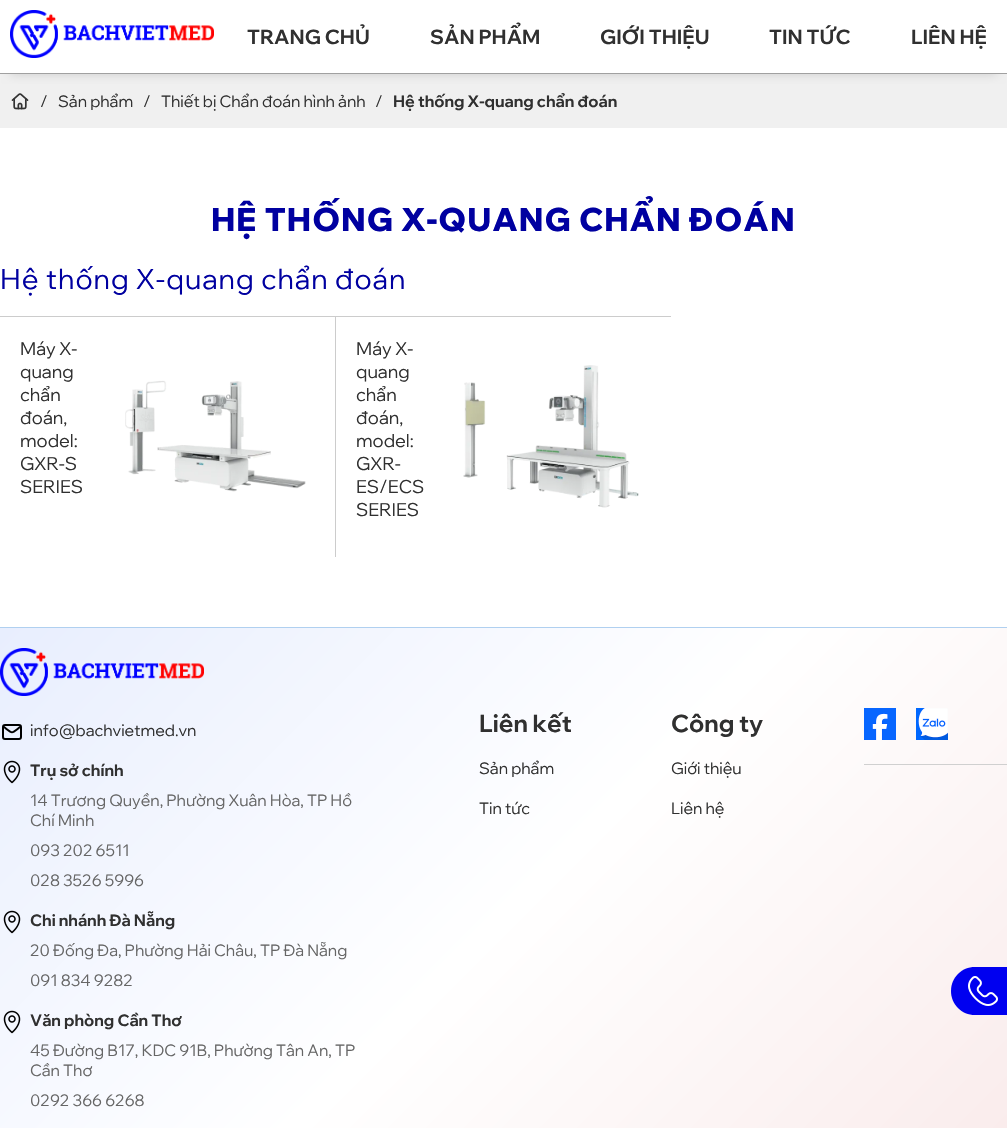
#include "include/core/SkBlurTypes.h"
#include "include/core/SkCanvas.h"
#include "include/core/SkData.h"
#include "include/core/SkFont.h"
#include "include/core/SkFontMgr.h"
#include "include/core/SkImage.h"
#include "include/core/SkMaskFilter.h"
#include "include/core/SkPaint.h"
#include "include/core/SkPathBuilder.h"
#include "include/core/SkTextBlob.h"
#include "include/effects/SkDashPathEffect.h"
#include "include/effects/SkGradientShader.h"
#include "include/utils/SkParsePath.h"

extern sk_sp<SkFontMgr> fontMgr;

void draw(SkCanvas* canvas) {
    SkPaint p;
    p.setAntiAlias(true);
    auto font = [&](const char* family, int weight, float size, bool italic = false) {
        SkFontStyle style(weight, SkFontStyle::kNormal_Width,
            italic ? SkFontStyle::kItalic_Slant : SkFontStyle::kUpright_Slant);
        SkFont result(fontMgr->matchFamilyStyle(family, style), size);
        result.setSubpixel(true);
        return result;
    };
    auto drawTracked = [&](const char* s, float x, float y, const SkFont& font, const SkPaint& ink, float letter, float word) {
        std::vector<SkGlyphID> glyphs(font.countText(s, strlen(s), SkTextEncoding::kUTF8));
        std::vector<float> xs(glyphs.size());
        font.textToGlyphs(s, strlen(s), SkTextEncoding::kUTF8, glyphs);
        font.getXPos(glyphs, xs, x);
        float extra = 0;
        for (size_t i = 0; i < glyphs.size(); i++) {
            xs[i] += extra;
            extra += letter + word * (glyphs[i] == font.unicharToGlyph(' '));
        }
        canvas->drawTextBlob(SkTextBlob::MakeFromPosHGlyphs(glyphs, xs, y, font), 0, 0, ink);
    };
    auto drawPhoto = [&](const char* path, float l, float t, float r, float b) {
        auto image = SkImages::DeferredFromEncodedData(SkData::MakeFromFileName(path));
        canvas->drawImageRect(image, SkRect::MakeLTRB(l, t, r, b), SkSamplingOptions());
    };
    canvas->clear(0xFFFFFFFF);
    p.setColor(0xFFF0F0F0);
    canvas->drawRect(SkRect::MakeLTRB(0, 74, 1007, 128), p);
    canvas->save();
    canvas->clipRect(SkRect::MakeLTRB(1, 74, 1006, 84));
    p.setColor(0xFFCCCCCC);
    p.setMaskFilter(SkMaskFilter::MakeBlur(kNormal_SkBlurStyle, 5));
    canvas->drawRect(SkRect::MakeLTRB(10, 20, 997, 74), p);
    p.setMaskFilter(nullptr);
    canvas->restore();
    p.setColor(0xFFA0A0A0);
    canvas->drawRect(SkRect::MakeLTRB(0, 73, 1007, 74), p);
    drawPhoto("media/1.png", 10, 10, 214, 58);
    auto font1 = font("Wix Madefor Display", 700, 20);
    p.setColor(0xFF303030);
    {
        const struct { const char* s; float x, y; } items[] = {
            {"TRANG CHỦ", 247, 44},
            {"SẢN PHẨM", 430, 44},
            {"GIỚI THIỆU", 600, 44},
            {"TIN TỨC", 769, 44},
            {"LIÊN HỆ", 911, 44},
        };
        for (auto [s, x, y] : items) {
            canvas->drawString(s, x, y, font1, p);
        }
    }
    drawPhoto("media/2.png", 11, 93, 29, 110);
    auto font2 = font("Wix Madefor Display", 400, 16);
    {
        const struct { const char* s; float x, y; } items[] = {
            {"/", 40, 107},
            {"Sản phẩm", 58, 107},
            {"/", 143, 107},
            {"Thiết bị Chẩn đoán hình ảnh", 161, 107},
            {"/", 375, 107},
        };
        for (auto [s, x, y] : items) {
            canvas->drawString(s, x, y, font2, p);
        }
    }
    auto font3 = font("Wix Madefor Display", 700, 16);
    canvas->drawString("Hệ thống X-quang chẩn đoán", 393, 107, font3, p);
    auto font4 = font("Wix Madefor Display", 800, 32);
    p.setColor(0xFF0000A0);
    drawTracked("HỆ THỐNG X-QUANG CHẨN ĐOÁN", 211, 231, font4, p, 1, 0);
    auto font5 = font("Wix Madefor Display", 400, 28);
    drawTracked("Hệ thống X-quang chẩn đoán", 0, 289, font5, p, 1, 0);
    p.setColor(0xFFCCCCCC);
    canvas->drawRect(SkRect::MakeLTRB(0, 316, 671, 317), p);
    canvas->drawRect(SkRect::MakeLTRB(335, 316, 336, 557), p);
    auto font6 = font("Wix Madefor Display", 400, 18);
    p.setColor(0xFF303030);
    {
        const struct { const char* s; float x, y; } items[] = {
            {"Máy X-", 20, 355},
            {"quang", 20, 378},
            {"chẩn", 20, 401},
            {"đoán,", 20, 424},
            {"model:", 20, 447},
            {"GXR-S", 20, 470},
            {"SERIES", 20, 493},
        };
        for (auto [s, x, y] : items) {
            canvas->drawString(s, x, y, font6, p);
        }
    }
    drawPhoto("media/3.png", 125, 380, 306, 492);
    {
        const struct { const char* s; float x, y; } items[] = {
            {"Máy X-", 356, 355},
            {"quang", 356, 378},
            {"chẩn", 356, 401},
            {"đoán,", 356, 424},
            {"model:", 356, 447},
            {"GXR-", 356, 470},
            {"ES/ECS", 356, 493},
            {"SERIES", 356, 516},
        };
        for (auto [s, x, y] : items) {
            canvas->drawString(s, x, y, font6, p);
        }
    }
    drawPhoto("media/4.png", 463, 365, 639, 508);
    {
        const SkColor colors[] = {0xFFE8EEFE, 0xFFFFFFFF, 0xFFF9EAEA};
        const float stops[] = {0, 0.5f, 1};
        const SkPoint ends[] = {{107, 521}, {900, 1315}};
        p.setShader(SkGradientShader::MakeLinear(ends, colors, stops, 3, SkTileMode::kClamp));
        p.setAlpha(255);
    }
    canvas->drawRect(SkRect::MakeLTRB(0, 628, 1007, 1128), p);
    p.setShader(nullptr);
    p.setColor(0xFFB0D0F0);
    canvas->drawRect(SkRect::MakeLTRB(0, 627, 1007, 628), p);
    drawPhoto("media/5.png", 0, 648, 204, 696);
    p.setStyle(SkPaint::kStroke_Style);
    p.setStrokeWidth(2);
    p.setStrokeCap(SkPaint::kRound_Cap);
    p.setStrokeJoin(SkPaint::kRound_Join);
    p.setColor(0xFF000000);
    canvas->drawPath(SkPathBuilder().moveTo(4, 727).cubicTo(13, 734, 11, 734, 20, 727).detach(), p);
    p.setStrokeCap(SkPaint::kButt_Cap);
    p.setStrokeJoin(SkPaint::kMiter_Join);
    canvas->drawRoundRect(SkRect::MakeLTRB(3, 725, 21, 739), 2, 2, p);
    p.setStyle(SkPaint::kFill_Style);
    p.setColor(0xFF303030);
    canvas->drawString("info@bachvietmed.vn", 30, 736, font2, p);
    drawPhoto("media/6.png", 3, 760, 21, 784);
    canvas->drawString("Trụ sở chính", 30, 776, font3, p);
    p.setColor(0xFF666666);
    {
        const struct { const char* s; float x, y; } items[] = {
            {"14 Trương Quyền, Phường Xuân Hòa, TP Hồ", 30, 806},
            {"Chí Minh", 30, 826},
            {"093 202 6511", 30, 856},
            {"028 3526 5996", 30, 886},
        };
        for (auto [s, x, y] : items) {
            canvas->drawString(s, x, y, font2, p);
        }
    }
    drawPhoto("media/7.png", 3, 910, 21, 934);
    p.setColor(0xFF303030);
    canvas->drawString("Chi nhánh Đà Nẵng", 30, 926, font3, p);
    p.setColor(0xFF666666);
    canvas->drawString("20 Đống Đa, Phường Hải Châu, TP Đà Nẵng", 30, 956, font2, p);
    canvas->drawString("091 834 9282", 30, 986, font2, p);
    drawPhoto("media/8.png", 3, 1010, 21, 1034);
    p.setColor(0xFF303030);
    canvas->drawString("Văn phòng Cần Thơ", 30, 1026, font3, p);
    p.setColor(0xFF666666);
    {
        const struct { const char* s; float x, y; } items[] = {
            {"45 Đường B17, KDC 91B, Phường Tân An, TP", 30, 1056},
            {"Cần Thơ", 30, 1076},
            {"0292 366 6268", 30, 1106},
        };
        for (auto [s, x, y] : items) {
            canvas->drawString(s, x, y, font2, p);
        }
    }
    auto font7 = font("Wix Madefor Display", 700, 24);
    p.setColor(0xFF303030);
    canvas->drawString("Liên kết", 479, 732, font7, p);
    canvas->drawString("Sản phẩm", 479, 774, font2, p);
    canvas->drawString("Tin tức", 479, 814, font2, p);
    canvas->drawString("Công ty", 671, 732, font7, p);
    canvas->drawString("Giới thiệu", 671, 774, font2, p);
    canvas->drawString("Liên hệ", 671, 814, font2, p);
    p.setColor(0xFFD0D0D0);
    canvas->drawRect(SkRect::MakeLTRB(864, 764, 1007, 765), p);
    drawPhoto("media/9.png", 864, 708, 896, 740);
    drawPhoto("media/10.png", 916, 708, 948, 740);
    p.setColor(0xFF0000F0);
    canvas->drawPath(SkPathBuilder().moveTo(975, 967).lineTo(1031, 967).lineTo(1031, 1015).lineTo(975, 1015).cubicTo(961.5f, 1015, 951, 1004.5f, 951, 991).cubicTo(951, 977.5f, 961.5f, 967, 975, 967).close().detach(), p);
    drawPhoto("media/11.png", 968, 976, 998, 1006);
}
